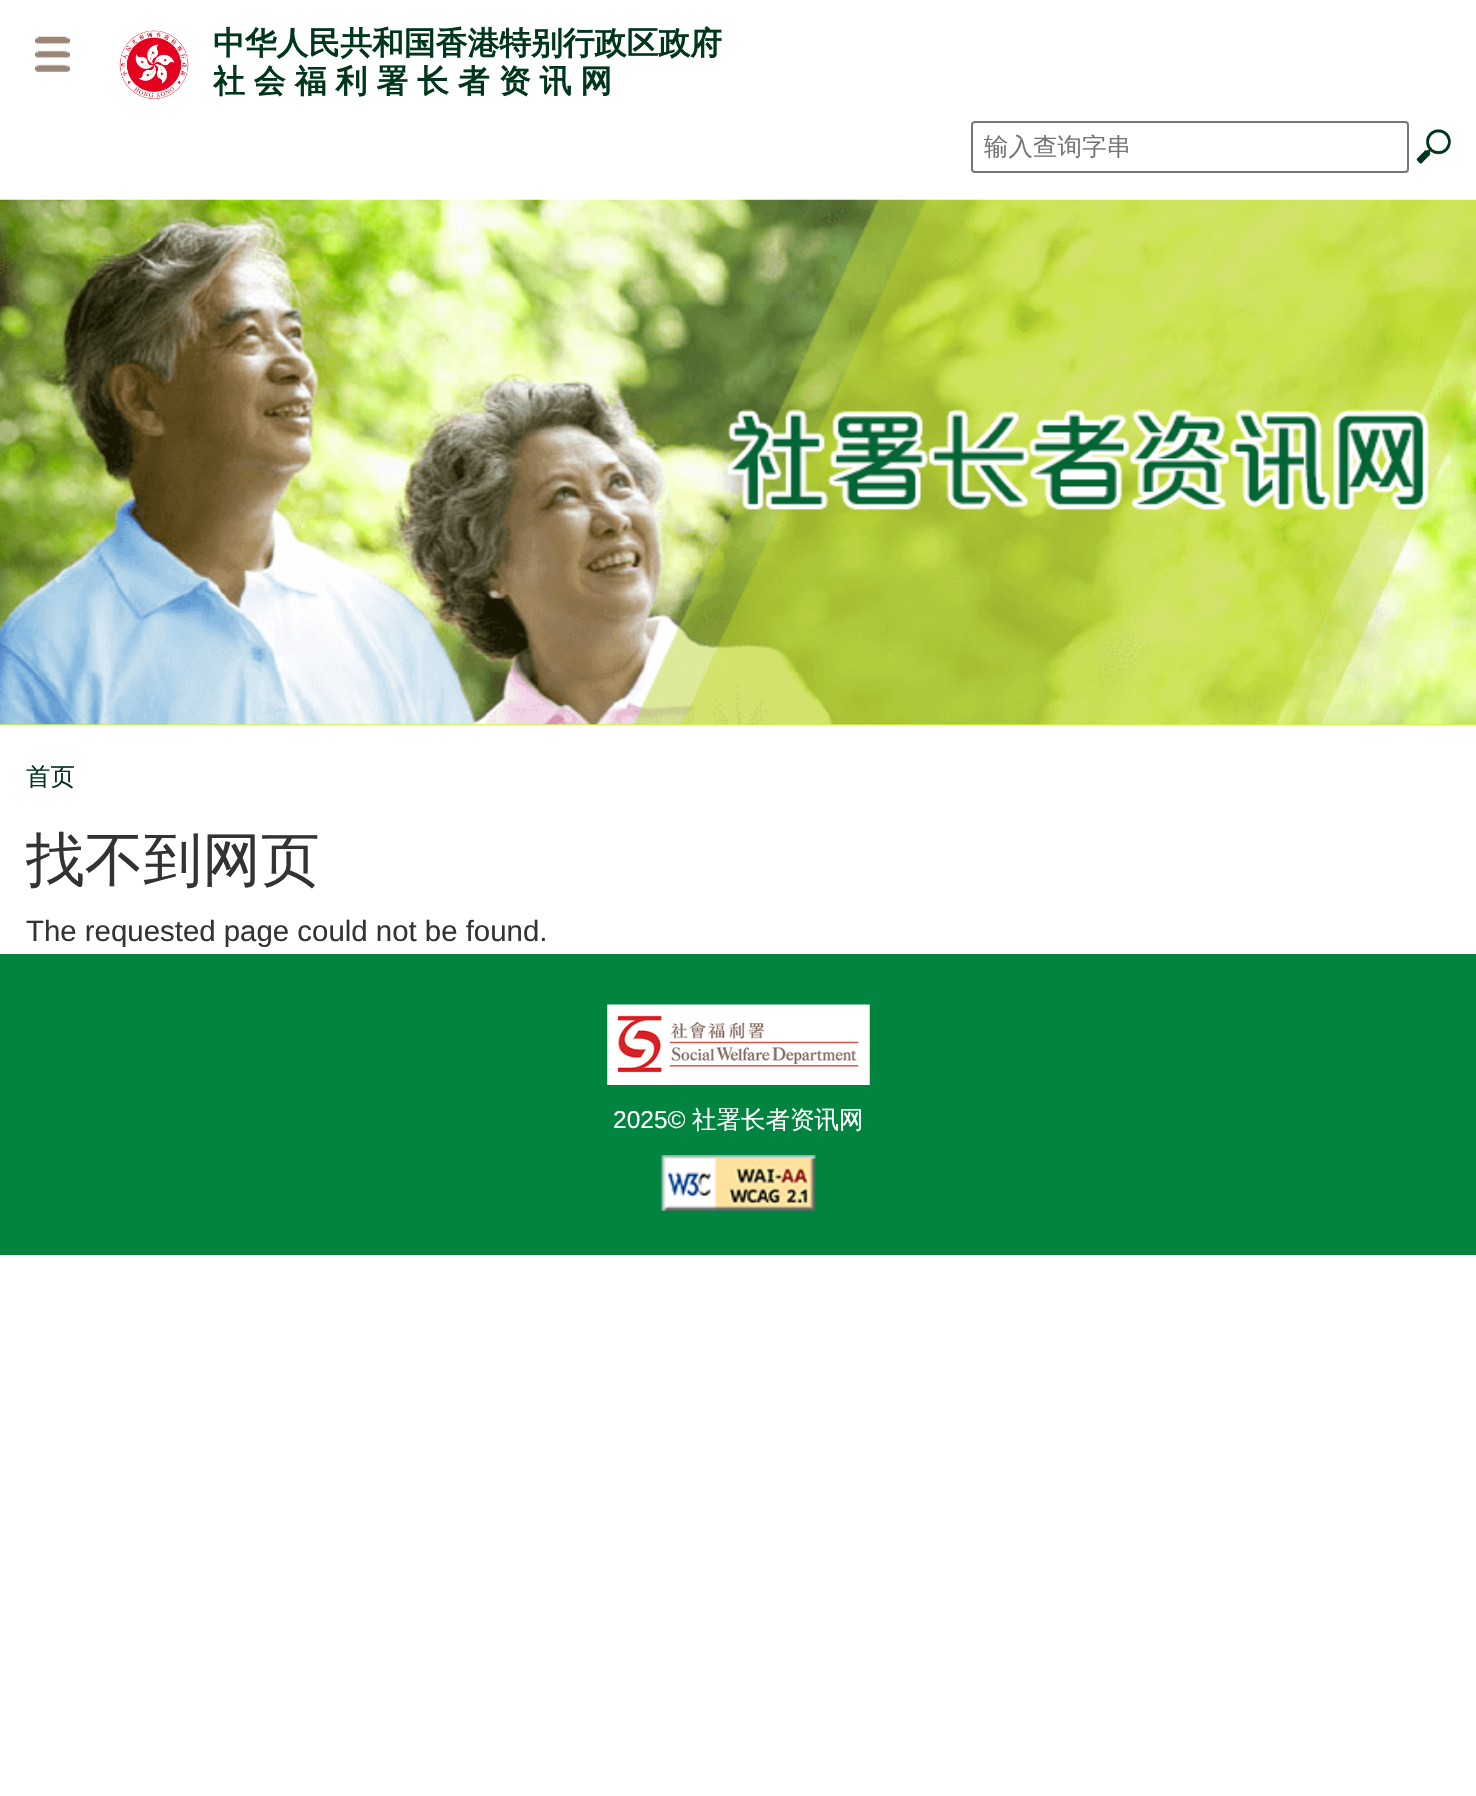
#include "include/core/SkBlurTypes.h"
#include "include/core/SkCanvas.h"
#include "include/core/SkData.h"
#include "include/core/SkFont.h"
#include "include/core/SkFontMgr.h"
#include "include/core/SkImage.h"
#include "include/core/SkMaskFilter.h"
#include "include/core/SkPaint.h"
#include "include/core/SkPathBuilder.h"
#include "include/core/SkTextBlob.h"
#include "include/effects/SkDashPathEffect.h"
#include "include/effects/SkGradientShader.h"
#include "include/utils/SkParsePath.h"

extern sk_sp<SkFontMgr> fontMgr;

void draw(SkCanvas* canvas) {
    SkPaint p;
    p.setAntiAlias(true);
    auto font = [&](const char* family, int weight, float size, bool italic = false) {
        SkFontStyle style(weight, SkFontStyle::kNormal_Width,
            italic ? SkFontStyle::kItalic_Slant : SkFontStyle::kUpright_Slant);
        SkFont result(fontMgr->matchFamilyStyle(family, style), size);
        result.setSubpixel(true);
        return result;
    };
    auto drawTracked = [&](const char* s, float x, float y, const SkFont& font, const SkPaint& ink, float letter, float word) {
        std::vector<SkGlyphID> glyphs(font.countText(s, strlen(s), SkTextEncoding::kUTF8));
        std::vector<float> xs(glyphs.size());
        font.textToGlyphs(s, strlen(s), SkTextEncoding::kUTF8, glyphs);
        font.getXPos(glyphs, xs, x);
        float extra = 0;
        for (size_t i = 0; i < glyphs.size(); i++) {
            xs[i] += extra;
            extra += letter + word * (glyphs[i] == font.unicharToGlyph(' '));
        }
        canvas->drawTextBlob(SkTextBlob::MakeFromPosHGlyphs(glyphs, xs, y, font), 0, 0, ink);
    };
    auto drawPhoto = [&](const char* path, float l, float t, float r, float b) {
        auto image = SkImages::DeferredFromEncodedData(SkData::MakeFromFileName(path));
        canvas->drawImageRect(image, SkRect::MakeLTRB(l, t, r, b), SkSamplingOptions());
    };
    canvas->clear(0xFFFFFFFF);
    drawPhoto("media/1.png", 35, 36, 70, 72);
    drawPhoto("media/2.png", 119, 30, 189, 99);
    auto font1 = font("WenQuanYi Zen Hei", 700, 31.8f);
    p.setColor(0xFF00361B);
    canvas->drawString("中华人民共和国香港特别行政区政府", 213, 54, font1, p);
    drawTracked("社 会 福 利 署", 213, 92, font1, p, 0, -0.5f);
    drawTracked("长 者 资 讯 网", 417, 92, font1, p, 0, -0.5f);
    p.setStyle(SkPaint::kStroke_Style);
    p.setStrokeWidth(2);
    p.setColor(0xFF767676);
    canvas->drawRoundRect(SkRect::MakeLTRB(972, 122, 1408, 172), 3, 3, p);
    auto font2 = font("WenQuanYi Zen Hei", 500, 24.5f);
    p.setStyle(SkPaint::kFill_Style);
    p.setColor(0xFF757575);
    canvas->drawString("输入查询字串", 984, 155, font2, p);
    drawPhoto("media/3.png", 1416, 129, 1451, 164);
    p.setColor(0xFFC3FC2E);
    canvas->drawRect(SkRect::MakeLTRB(0, 724, 1476, 725), p);
    drawPhoto("media/4.png", 0, 199, 1476, 725);
    p.setColor(0xFF00361B);
    canvas->drawString("首页", 26, 785, font2, p);
    auto font3 = font("WenQuanYi Zen Hei", 500, 58.75f);
    p.setColor(0xFF333333);
    canvas->drawString("找不到网页", 26, 880, font3, p);
    auto font4 = font("Liberation Sans", 400, 29.4f);
    canvas->drawString("The requested page could not be found.", 26, 941, font4, p);
    p.setColor(0xFF00843F);
    canvas->drawRect(SkRect::MakeLTRB(0, 954, 1476, 1255), p);
    drawPhoto("media/5.png", 607, 1004, 870, 1085);
    auto font5 = font("Liberation Sans", 400, 24.5f);
    p.setColor(0xFFFFFFFF);
    canvas->drawString("2025©", 613, 1128, font5, p);
    canvas->drawString("社署长者资讯网", 692, 1128, font2, p);
    drawPhoto("media/6.png", 661, 1155, 816, 1211);
}
